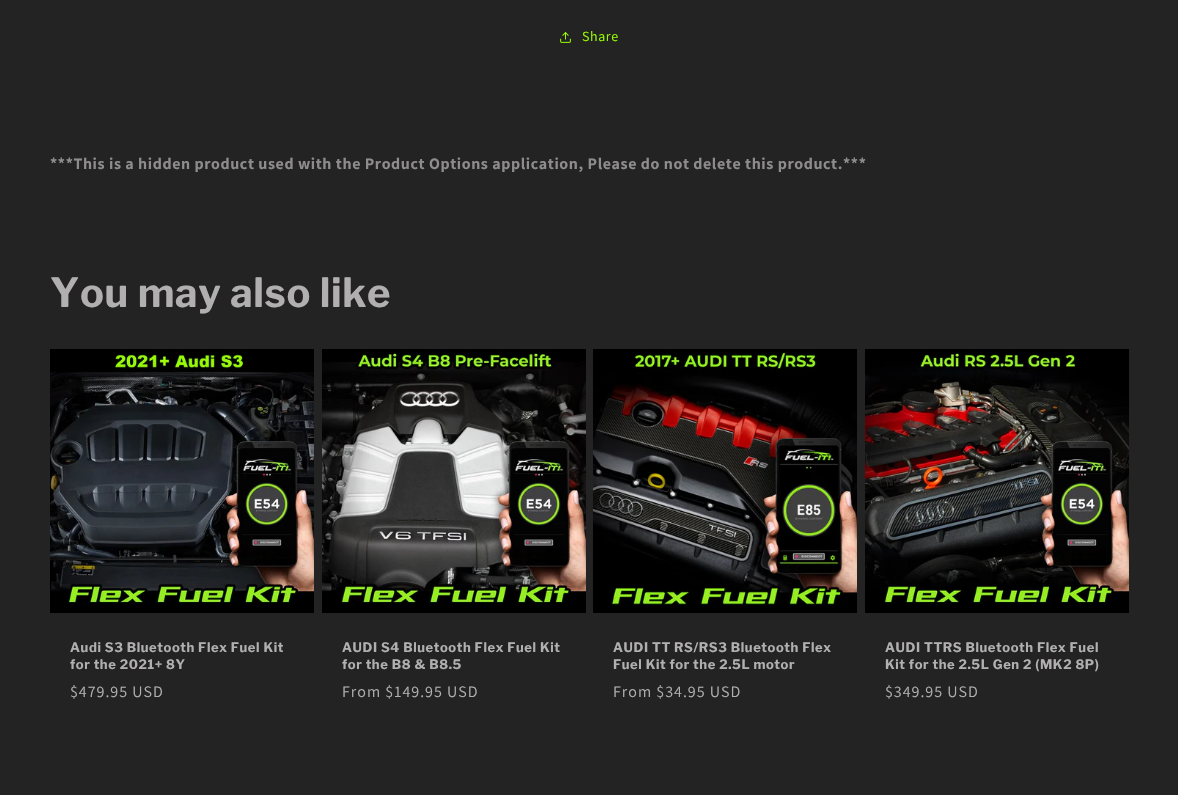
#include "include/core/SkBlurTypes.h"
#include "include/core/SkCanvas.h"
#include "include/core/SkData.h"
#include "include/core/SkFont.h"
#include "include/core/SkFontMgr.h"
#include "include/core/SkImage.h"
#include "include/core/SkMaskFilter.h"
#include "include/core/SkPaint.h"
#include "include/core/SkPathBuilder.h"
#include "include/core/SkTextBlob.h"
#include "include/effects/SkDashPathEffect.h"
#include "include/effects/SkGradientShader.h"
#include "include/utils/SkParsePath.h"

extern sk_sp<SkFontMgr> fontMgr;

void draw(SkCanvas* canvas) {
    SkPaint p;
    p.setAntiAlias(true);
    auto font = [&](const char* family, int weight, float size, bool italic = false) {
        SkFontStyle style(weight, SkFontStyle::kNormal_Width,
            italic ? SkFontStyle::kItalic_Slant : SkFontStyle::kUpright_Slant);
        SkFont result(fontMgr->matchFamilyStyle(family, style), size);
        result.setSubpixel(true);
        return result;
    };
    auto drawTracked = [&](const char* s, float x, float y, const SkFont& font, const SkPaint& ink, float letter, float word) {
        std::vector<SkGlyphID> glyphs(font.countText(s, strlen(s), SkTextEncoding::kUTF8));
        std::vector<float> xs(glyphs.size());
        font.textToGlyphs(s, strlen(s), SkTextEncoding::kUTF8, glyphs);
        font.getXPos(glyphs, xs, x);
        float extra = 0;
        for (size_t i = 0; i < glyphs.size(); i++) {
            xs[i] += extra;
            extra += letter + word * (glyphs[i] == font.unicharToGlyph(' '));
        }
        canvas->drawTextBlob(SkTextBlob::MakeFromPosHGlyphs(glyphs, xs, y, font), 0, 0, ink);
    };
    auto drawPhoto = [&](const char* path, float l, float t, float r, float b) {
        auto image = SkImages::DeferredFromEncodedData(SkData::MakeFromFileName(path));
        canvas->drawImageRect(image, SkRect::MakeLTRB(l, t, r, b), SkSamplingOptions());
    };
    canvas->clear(0xFF232323);
    drawPhoto("media/1.png", 560, 32, 571, 43);
    auto font1 = font("Assistant", 400, 14);
    p.setColor(0xFF99FF00);
    drawTracked("Share", 582, 41, font1, p, 0.6f, 0);
    auto font2 = font("Assistant", 700, 16);
    p.setColor(0xFF8E8C8C);
    drawTracked("***This is a hidden product used with the Product Options application, Please do not delete this product.***", 50, 169, font2, p, 0.6f, 0);
    auto font3 = font("Libre Franklin", 700, 40);
    p.setColor(0xFFB1AFAF);
    drawTracked("You may also like", 50, 307, font3, p, 0.6f, 0);
    drawPhoto("media/2.png", 50, 349, 314, 613);
    auto font4 = font("Libre Franklin", 700, 13);
    drawTracked("Audi S3 Bluetooth Flex Fuel Kit", 70, 652, font4, p, 0.6f, 0);
    drawTracked("for the 2021+ 8Y", 70, 669, font4, p, 0.6f, 0);
    auto font5 = font("Assistant", 400, 16);
    drawTracked("$479.95 USD", 70, 697, font5, p, 1, 0);
    drawPhoto("media/3.png", 322, 349, 586, 613);
    drawTracked("AUDI S4 Bluetooth Flex Fuel Kit", 342, 652, font4, p, 0.6f, 0);
    drawTracked("for the B8 & B8.5", 342, 669, font4, p, 0.6f, 0);
    drawTracked("From $149.95 USD", 342, 697, font5, p, 1, 0);
    drawPhoto("media/4.png", 593, 349, 857, 613);
    drawTracked("AUDI TT RS/RS3 Bluetooth Flex", 613, 652, font4, p, 0.6f, 0);
    drawTracked("Fuel Kit for the 2.5L motor", 613, 669, font4, p, 0.6f, 0);
    drawTracked("From $34.95 USD", 613, 697, font5, p, 1, 0);
    drawPhoto("media/5.png", 865, 349, 1129, 613);
    drawTracked("AUDI TTRS Bluetooth Flex Fuel", 885, 652, font4, p, 0.6f, 0);
    drawTracked("Kit for the 2.5L Gen 2 (MK2 8P)", 885, 669, font4, p, 0.6f, 0);
    drawTracked("$349.95 USD", 885, 697, font5, p, 1, 0);
}
